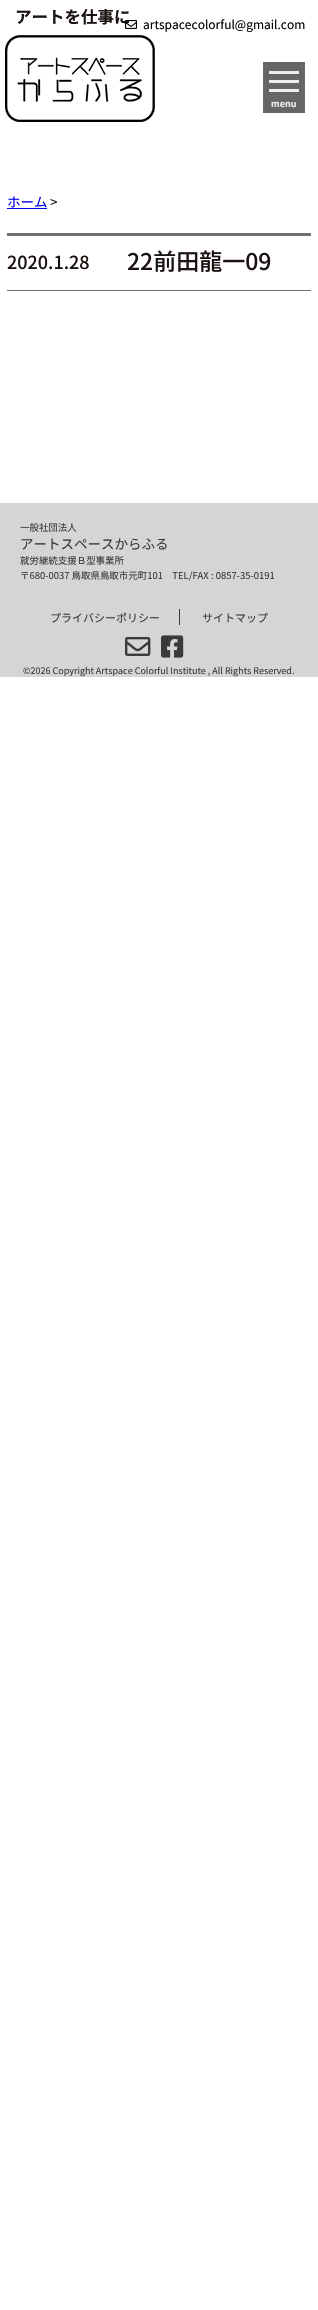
#include "include/core/SkBlurTypes.h"
#include "include/core/SkCanvas.h"
#include "include/core/SkData.h"
#include "include/core/SkFont.h"
#include "include/core/SkFontMgr.h"
#include "include/core/SkImage.h"
#include "include/core/SkMaskFilter.h"
#include "include/core/SkPaint.h"
#include "include/core/SkPathBuilder.h"
#include "include/core/SkTextBlob.h"
#include "include/effects/SkDashPathEffect.h"
#include "include/effects/SkGradientShader.h"
#include "include/utils/SkParsePath.h"

extern sk_sp<SkFontMgr> fontMgr;

void draw(SkCanvas* canvas) {
    SkPaint p;
    p.setAntiAlias(true);
    auto font = [&](const char* family, int weight, float size, bool italic = false) {
        SkFontStyle style(weight, SkFontStyle::kNormal_Width,
            italic ? SkFontStyle::kItalic_Slant : SkFontStyle::kUpright_Slant);
        SkFont result(fontMgr->matchFamilyStyle(family, style), size);
        result.setSubpixel(true);
        return result;
    };
    auto drawPhoto = [&](const char* path, float l, float t, float r, float b) {
        auto image = SkImages::DeferredFromEncodedData(SkData::MakeFromFileName(path));
        canvas->drawImageRect(image, SkRect::MakeLTRB(l, t, r, b), SkSamplingOptions());
    };
    canvas->clear(0xFFFFFFFF);
    auto font1 = font("Noto Sans JP", 700, 16.5f);
    p.setColor(0xFF1A1311);
    canvas->drawString("アートを仕事に", 15, 23, font1, p);
    drawPhoto("media/1.png", 5, 35, 155, 122);
    drawPhoto("media/2.png", 125, 20, 137, 29);
    auto font2 = font("Noto Sans JP", 400, 12);
    p.setColor(0xFF000000);
    canvas->drawString("artspacecolorful@gmail.com", 143, 29, font2, p);
    {
        const struct { float l, t, r, b; SkColor color; } items[] = {
            {263, 62, 305, 113, 0xFF666666},
            {269, 71, 299, 74, 0xFFEEEEEE},
            {269, 80, 299, 83, 0xFFEEEEEE},
            {269, 89, 299, 92, 0xFFEEEEEE},
        };
        for (auto [l, t, r, b, color] : items) {
            p.setColor(color);
            canvas->drawRect(SkRect::MakeLTRB(l, t, r, b), p);
        }
    }
    auto font3 = font("Noto Sans JP", 700, 9);
    canvas->drawString("menu", 271, 107, font3, p);
    auto font4 = font("Noto Sans JP", 400, 13.5f);
    p.setColor(0xFF0000EE);
    canvas->drawString("ホーム", 7, 207, font4, p);
    canvas->drawRect(SkRect::MakeLTRB(7, 208, 47, 209), p);
    p.setColor(0xFF1A1311);
    canvas->drawString(">", 50, 207, font4, p);
    p.setColor(0xFF707070);
    canvas->drawRect(SkRect::MakeLTRB(7, 233, 311, 236), p);
    auto font5 = font("Noto Sans JP", 500, 18);
    p.setColor(0xFF1A1311);
    canvas->drawString("2020.1.28", 7, 269, font5, p);
    auto font6 = font("Noto Sans JP", 500, 23);
    canvas->drawString("22前田龍一09", 127, 270, font6, p);
    p.setColor(0xFF707070);
    canvas->drawRect(SkRect::MakeLTRB(7, 290, 311, 291), p);
    p.setColor(0xFFD5D5D6);
    canvas->drawRect(SkRect::MakeLTRB(0, 503, 318, 677), p);
    auto font7 = font("Noto Sans JP", 400, 9.45f);
    p.setColor(0xFF3A3A3A);
    canvas->drawString("一般社団法人", 20, 531, font7, p);
    canvas->drawString("アートスペースからふる", 20, 549, font4, p);
    canvas->drawString("就労継続支援Ｂ型事業所", 20, 564, font7, p);
    canvas->drawString("〒680-0037 鳥取県鳥取市元町101　TEL/FAX : 0857-35-0191", 20, 579, font7, p);
    canvas->drawRect(SkRect::MakeLTRB(179, 609, 180, 625), p);
    auto font8 = font("Noto Sans JP", 400, 11);
    canvas->drawString("プライバシーポリシー", 50, 622, font8, p);
    canvas->drawString("サイトマップ", 202, 622, font8, p);
    drawPhoto("media/3.png", 125, 637, 151, 656);
    drawPhoto("media/4.png", 161, 635, 184, 658);
    auto font9 = font("Noto Sans JP", 400, 9);
    canvas->drawString("©2026 Copyright Artspace Colorful Institute , All Rights Reserved.", 23, 674, font9, p);
}
